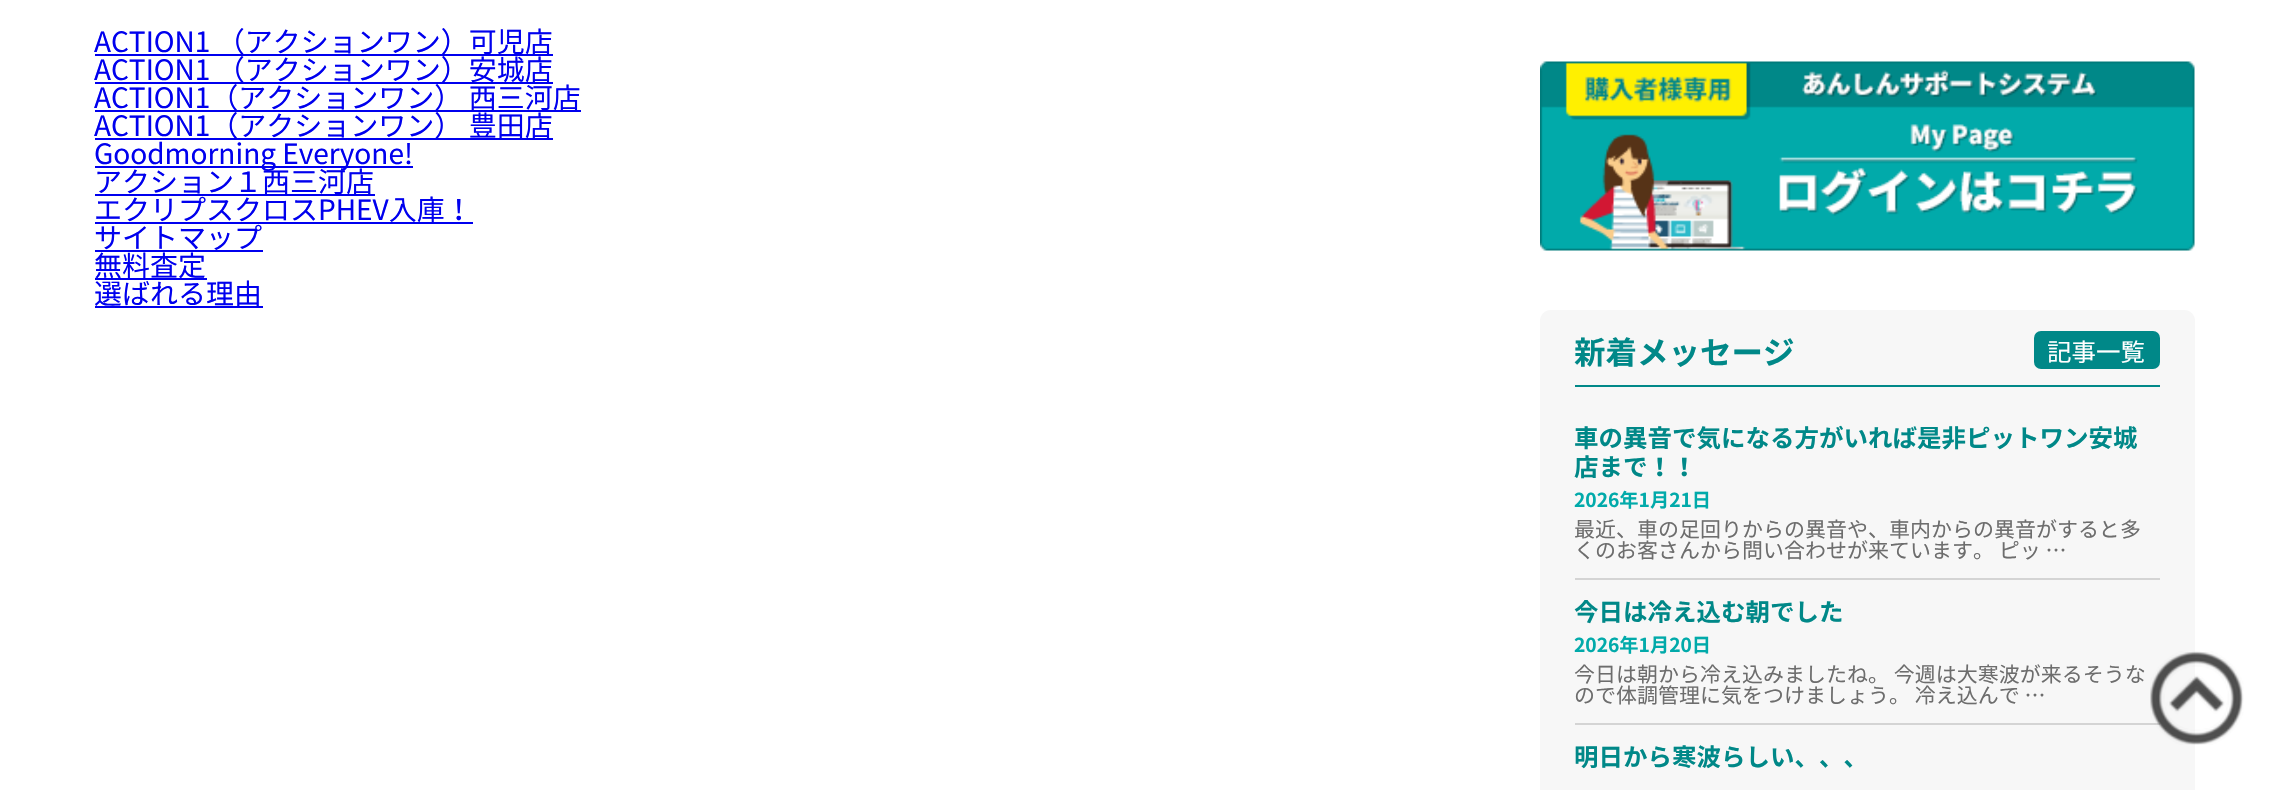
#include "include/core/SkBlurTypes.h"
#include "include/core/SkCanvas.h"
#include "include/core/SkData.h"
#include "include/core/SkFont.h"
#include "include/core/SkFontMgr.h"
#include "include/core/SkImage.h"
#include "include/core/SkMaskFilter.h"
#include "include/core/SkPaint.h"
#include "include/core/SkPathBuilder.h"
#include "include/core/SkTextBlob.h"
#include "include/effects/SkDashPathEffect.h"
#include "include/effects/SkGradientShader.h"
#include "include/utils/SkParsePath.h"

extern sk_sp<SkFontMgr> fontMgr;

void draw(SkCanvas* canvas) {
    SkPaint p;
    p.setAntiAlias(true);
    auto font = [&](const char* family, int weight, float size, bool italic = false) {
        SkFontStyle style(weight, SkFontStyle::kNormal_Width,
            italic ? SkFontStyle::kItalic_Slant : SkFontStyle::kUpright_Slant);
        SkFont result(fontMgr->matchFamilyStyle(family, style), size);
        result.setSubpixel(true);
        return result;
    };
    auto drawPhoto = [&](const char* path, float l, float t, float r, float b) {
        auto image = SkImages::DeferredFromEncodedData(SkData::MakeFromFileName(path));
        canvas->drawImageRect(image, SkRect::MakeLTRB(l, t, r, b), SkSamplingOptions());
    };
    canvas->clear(0xFFFFFFFF);
    p.setColor(0xFF0000EE);
    canvas->drawRect(SkRect::MakeLTRB(95, 54, 553, 56), p);
    auto font1 = font("Noto Sans JP", 400, 28);
    canvas->drawString("ACTION1 （アクションワン）可児店", 94, 52, font1, p);
    canvas->drawRect(SkRect::MakeLTRB(95, 82, 553, 84), p);
    canvas->drawString("ACTION1 （アクションワン）安城店", 94, 80, font1, p);
    canvas->drawRect(SkRect::MakeLTRB(95, 110, 581, 112), p);
    canvas->drawString("ACTION1（アクションワン） 西三河店", 94, 108, font1, p);
    canvas->drawRect(SkRect::MakeLTRB(95, 138, 553, 140), p);
    canvas->drawString("ACTION1（アクションワン） 豊田店", 94, 136, font1, p);
    canvas->drawRect(SkRect::MakeLTRB(95, 166, 413, 168), p);
    canvas->drawString("Goodmorning Everyone!", 94, 164, font1, p);
    canvas->drawRect(SkRect::MakeLTRB(95, 194, 375, 196), p);
    canvas->drawString("アクション１西三河店", 94, 192, font1, p);
    canvas->drawRect(SkRect::MakeLTRB(95, 222, 473, 224), p);
    canvas->drawString("エクリプスクロスPHEV入庫！", 94, 220, font1, p);
    canvas->drawRect(SkRect::MakeLTRB(95, 250, 263, 252), p);
    canvas->drawString("サイトマップ", 94, 248, font1, p);
    canvas->drawRect(SkRect::MakeLTRB(95, 278, 207, 280), p);
    canvas->drawString("無料査定", 94, 276, font1, p);
    canvas->drawRect(SkRect::MakeLTRB(95, 306, 263, 308), p);
    canvas->drawString("選ばれる理由", 94, 304, font1, p);
    drawPhoto("media/1.png", 1540, 61, 2195, 251);
    p.setColor(0xFFF7F7F7);
    canvas->drawRoundRect(SkRect::MakeLTRB(1540, 310, 2195, 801), 11, 11, p);
    p.setColor(0xFF008888);
    canvas->drawRect(SkRect::MakeLTRB(1575, 385, 2160, 387), p);
    auto font2 = font("Noto Sans JP", 700, 31.5f);
    canvas->drawString("新着メッセージ", 1574, 364, font2, p);
    p.setColor(0xFFD4D4D4);
    canvas->drawRect(SkRect::MakeLTRB(1575, 578, 2160, 580), p);
    auto font3 = font("Noto Sans JP", 700, 24.5f);
    p.setColor(0xFF008888);
    canvas->drawString("車の異音で気になる方がいれば是非ピットワン安城", 1574, 447, font3, p);
    canvas->drawString("店まで！！", 1574, 476, font3, p);
    auto font4 = font("Noto Sans JP", 700, 19.25f);
    p.setColor(0xFF01AAAA);
    canvas->drawString("2026年1月21日", 1574, 507, font4, p);
    auto font5 = font("Noto Sans JP", 400, 21);
    p.setColor(0xFF6D6D6D);
    canvas->drawString("最近、車の足回りからの異音や、車内からの異音がすると多", 1574, 537, font5, p);
    canvas->drawString("くのお客さんから問い合わせが来ています。 ピッ …", 1574, 558, font5, p);
    p.setColor(0xFFD4D4D4);
    canvas->drawRect(SkRect::MakeLTRB(1575, 723, 2160, 725), p);
    p.setColor(0xFF008888);
    canvas->drawString("今日は冷え込む朝でした", 1574, 621, font3, p);
    p.setColor(0xFF01AAAA);
    canvas->drawString("2026年1月20日", 1574, 652, font4, p);
    p.setColor(0xFF6D6D6D);
    canvas->drawString("今日は朝から冷え込みましたね。 今週は大寒波が来るそうな", 1574, 682, font5, p);
    canvas->drawString("ので体調管理に気をつけましょう。 冷え込んで …", 1574, 703, font5, p);
    p.setColor(0xFF008888);
    canvas->drawString("明日から寒波らしい、、、", 1574, 766, font3, p);
    canvas->drawRoundRect(SkRect::MakeLTRB(2034, 331, 2160, 369), 7, 7, p);
    auto font6 = font("Noto Sans JP", 400, 24.5f);
    p.setColor(0xFFFFFFFF);
    canvas->drawString("記事一覧", 2047, 361, font6, p);
    drawPhoto("media/2.png", 2150, 651, 2244, 745);
}
